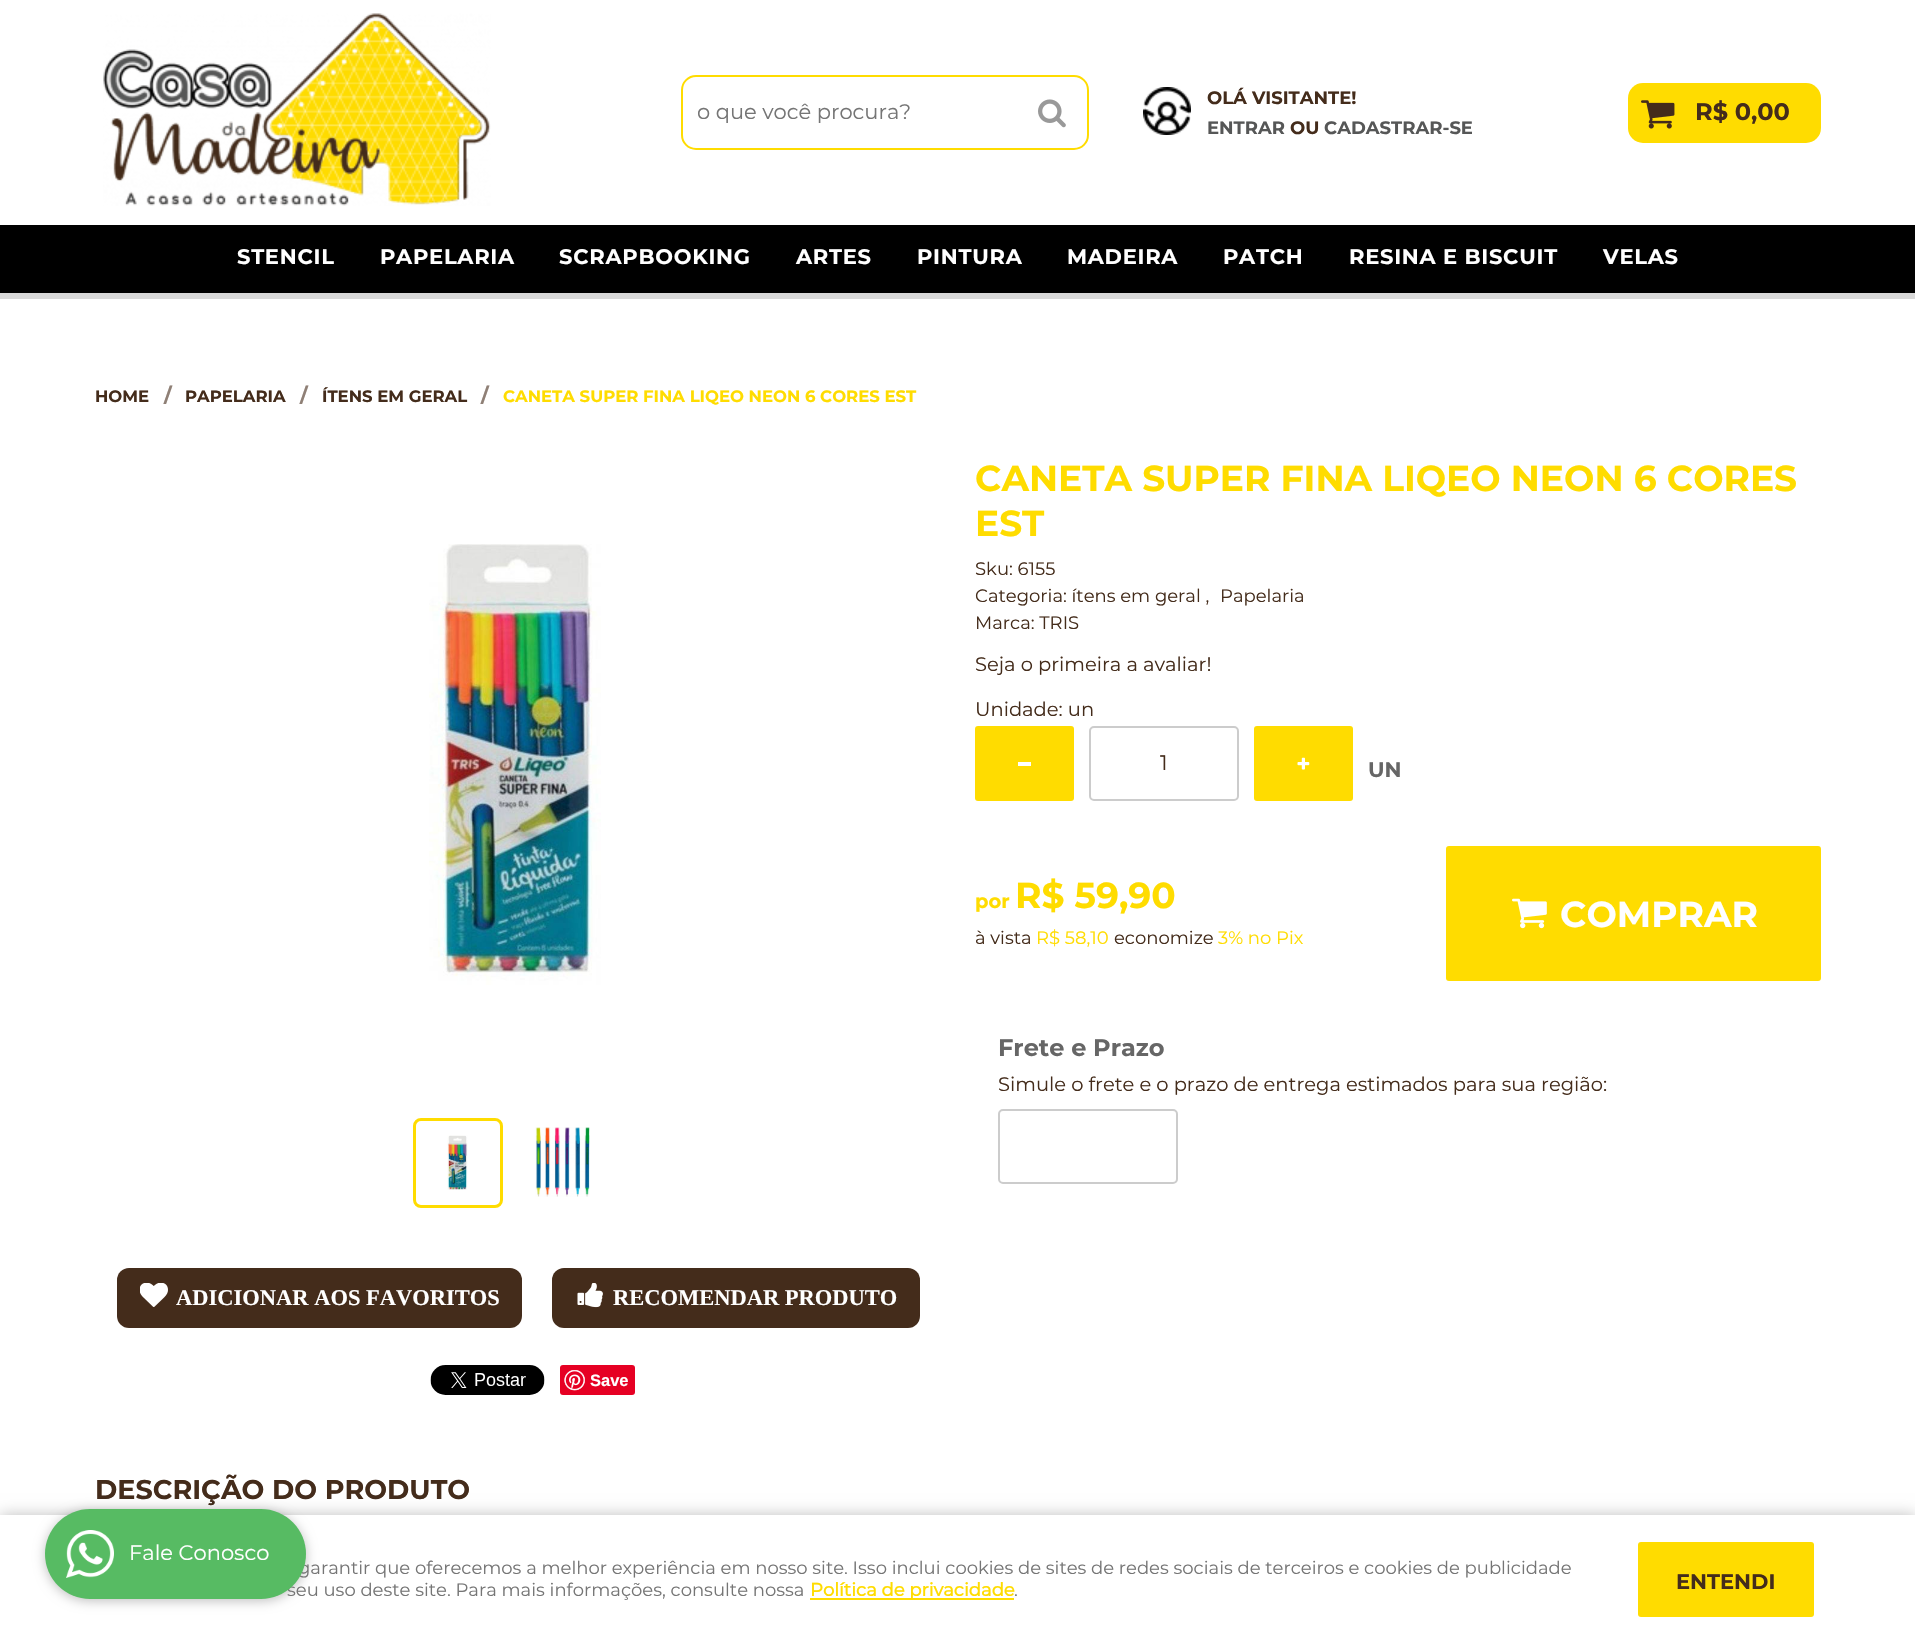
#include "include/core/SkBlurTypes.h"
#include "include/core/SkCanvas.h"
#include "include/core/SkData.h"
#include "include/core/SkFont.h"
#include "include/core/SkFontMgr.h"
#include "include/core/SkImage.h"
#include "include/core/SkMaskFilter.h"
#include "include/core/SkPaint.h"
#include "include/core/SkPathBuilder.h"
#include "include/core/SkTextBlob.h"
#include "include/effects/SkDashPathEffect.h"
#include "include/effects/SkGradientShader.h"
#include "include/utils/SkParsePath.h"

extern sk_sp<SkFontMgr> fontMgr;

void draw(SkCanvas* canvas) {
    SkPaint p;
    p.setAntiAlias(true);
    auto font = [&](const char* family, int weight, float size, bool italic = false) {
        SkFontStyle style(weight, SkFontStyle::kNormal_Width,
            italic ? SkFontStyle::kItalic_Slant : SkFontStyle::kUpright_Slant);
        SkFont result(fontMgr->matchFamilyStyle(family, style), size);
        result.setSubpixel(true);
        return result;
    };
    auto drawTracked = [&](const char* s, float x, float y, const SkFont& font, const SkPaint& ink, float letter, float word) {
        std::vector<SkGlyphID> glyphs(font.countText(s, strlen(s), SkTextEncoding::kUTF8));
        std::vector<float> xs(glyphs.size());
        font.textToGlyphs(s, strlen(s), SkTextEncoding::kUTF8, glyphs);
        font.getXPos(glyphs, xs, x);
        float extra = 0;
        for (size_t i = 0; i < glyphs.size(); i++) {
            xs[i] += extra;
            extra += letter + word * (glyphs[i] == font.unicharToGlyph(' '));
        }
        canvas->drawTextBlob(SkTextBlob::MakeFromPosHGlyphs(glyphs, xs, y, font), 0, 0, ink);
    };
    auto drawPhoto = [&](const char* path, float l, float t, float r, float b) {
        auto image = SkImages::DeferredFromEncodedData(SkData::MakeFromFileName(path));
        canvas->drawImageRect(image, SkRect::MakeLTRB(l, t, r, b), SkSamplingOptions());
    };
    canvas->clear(0xFFFFFFFF);
    drawPhoto("media/1.png", 103, 13, 491, 206);
    p.setStyle(SkPaint::kStroke_Style);
    p.setStrokeWidth(2);
    p.setColor(0xFFFFDC00);
    canvas->drawRoundRect(SkRect::MakeLTRB(682, 76, 1088, 149), 14, 14, p);
    canvas->save();
    canvas->clipRect(SkRect::MakeLTRB(698, 102, 1073, 123));
    auto font1 = font("Montserrat", 400, 21);
    p.setStyle(SkPaint::kFill_Style);
    p.setColor(0xFF757575);
    canvas->drawString("o que você procura?", 697, 119, font1, p);
    canvas->restore();
    drawPhoto("media/2.png", 1038, 99, 1066, 128);
    drawPhoto("media/3.png", 1143, 87, 1191, 135);
    auto font2 = font("Montserrat", 700, 18);
    p.setColor(0xFF442C1B);
    canvas->drawString("OLÁ VISITANTE!", 1207, 104, font2, p);
    p.setColor(0xFF565757);
    canvas->drawString("ENTRAR", 1207, 134, font2, p);
    p.setColor(0xFF442C1B);
    canvas->drawString("OU", 1290, 134, font2, p);
    p.setColor(0xFF565757);
    canvas->drawString("CADASTRAR-SE", 1324, 134, font2, p);
    p.setColor(0xFFFFDC00);
    canvas->drawRoundRect(SkRect::MakeLTRB(1628, 83, 1821, 143), 15, 15, p);
    drawPhoto("media/4.png", 1641, 100, 1675, 129);
    auto font3 = font("Montserrat", 700, 24);
    p.setColor(0xFF442C1B);
    canvas->drawString("R$ 0,00", 1695, 120, font3, p);
    p.setColor(0xFFD9D9D9);
    canvas->drawPath(SkPathBuilder().moveTo(0, 292).lineTo(0, 299).lineTo(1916, 299).lineTo(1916, 231).lineTo(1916, 292).close().detach(), p);
    p.setColor(0xFF000000);
    canvas->drawRect(SkRect::MakeLTRB(0, 225, 1915, 293), p);
    auto font4 = font("Montserrat", 700, 21);
    p.setColor(0xFFFFFFFF);
    {
        const struct { const char* s; float x, y; } items[] = {
            {"STENCIL", 237, 264},
            {"PAPELARIA", 380, 264},
            {"SCRAPBOOKING", 559, 264},
            {"ARTES", 796, 264},
            {"PINTURA", 917, 264},
            {"MADEIRA", 1067, 264},
            {"PATCH", 1223, 264},
            {"RESINA E BISCUIT", 1349, 264},
            {"VELAS", 1603, 264},
        };
        for (auto [s, x, y] : items) {
            drawTracked(s, x, y, font4, p, 0.75f, 0);
        }
    }
    auto font5 = font("Montserrat", 700, 16.5f);
    p.setColor(0xFF442C1B);
    canvas->drawString("HOME", 95, 402, font5, p);
    auto font6 = font("Montserrat", 700, 19.5f);
    p.setColor(0xFF8F8076);
    canvas->drawString("/", 164, 402, font6, p);
    p.setColor(0xFF442C1B);
    canvas->drawString("PAPELARIA", 185, 402, font5, p);
    p.setColor(0xFF8F8076);
    canvas->drawString("/", 300, 402, font6, p);
    p.setColor(0xFF442C1B);
    canvas->drawString("ÍTENS EM GERAL", 322, 402, font5, p);
    p.setColor(0xFF8F8076);
    canvas->drawString("/", 481, 402, font6, p);
    p.setColor(0xFFFFDC00);
    canvas->drawString("CANETA SUPER FINA LIQEO NEON 6 CORES EST", 503, 402, font5, p);
    auto font7 = font("Montserrat", 700, 36);
    canvas->drawString("CANETA SUPER FINA LIQEO NEON 6 CORES", 975, 491, font7, p);
    canvas->drawString("EST", 975, 536, font7, p);
    auto font8 = font("Montserrat", 400, 18);
    p.setColor(0xFF442C1B);
    {
        const struct { const char* s; float x, y; } items[] = {
            {"Sku: 6155", 975, 575},
            {"Categoria: ítens em geral ,", 975, 602},
            {"Papelaria", 1220, 602},
            {"Marca: TRIS", 975, 629},
        };
        for (auto [s, x, y] : items) {
            canvas->drawString(s, x, y, font8, p);
        }
    }
    auto font9 = font("Montserrat", 400, 19.5f);
    canvas->drawString("Seja o primeira a avaliar!", 975, 671, font9, p);
    canvas->drawString("Unidade: un", 975, 716, font9, p);
    p.setColor(0xFFFFDC00);
    canvas->drawRoundRect(SkRect::MakeLTRB(975, 726, 1074, 801), 3, 3, p);
    p.setColor(0xFFFFFFFF);
    canvas->drawRect(SkRect::MakeLTRB(1018, 762, 1031, 766), p);
    p.setStyle(SkPaint::kStroke_Style);
    p.setColor(0xFFCCCCCC);
    canvas->drawRoundRect(SkRect::MakeLTRB(1090, 727, 1238, 800), 4, 4, p);
    p.setStyle(SkPaint::kFill_Style);
    p.setColor(0xFF442C1B);
    canvas->drawString("1", 1160, 770, font1, p);
    p.setColor(0xFFFFDC00);
    canvas->drawRoundRect(SkRect::MakeLTRB(1254, 726, 1353, 801), 3, 3, p);
    drawPhoto("media/5.png", 1297, 757, 1310, 770);
    p.setColor(0xFF666666);
    canvas->drawString("UN", 1368, 777, font4, p);
    p.setColor(0xFFFFDC00);
    canvas->drawString("por", 975, 908, font6, p);
    canvas->drawString("R$ 59,90", 1015, 908, font7, p);
    p.setColor(0xFF442C1B);
    canvas->drawString("à vista", 975, 944, font8, p);
    p.setColor(0xFFFFDC00);
    canvas->drawString("R$ 58,10", 1036, 944, font8, p);
    p.setColor(0xFF442C1B);
    canvas->drawString("economize", 1114, 944, font8, p);
    p.setColor(0xFFFFDC00);
    canvas->drawString("3% no Pix", 1218, 944, font8, p);
    canvas->drawRoundRect(SkRect::MakeLTRB(1446, 846, 1821, 981), 3, 3, p);
    drawPhoto("media/6.png", 1512, 898, 1547, 929);
    p.setColor(0xFFFFFFFF);
    canvas->drawString("COMPRAR", 1560, 927, font7, p);
    p.setColor(0xFF666666);
    canvas->drawString("Frete e Prazo", 998, 1056, font3, p);
    p.setColor(0xFF442C1B);
    canvas->drawString("Simule o frete e o prazo de entrega estimados para sua região:", 998, 1091, font9, p);
    p.setStyle(SkPaint::kStroke_Style);
    p.setColor(0xFFCCCCCC);
    canvas->drawRoundRect(SkRect::MakeLTRB(999, 1110, 1177, 1183), 4, 4, p);
    drawPhoto("media/7.png", 429, 544, 601, 985);
    p.setStrokeWidth(3);
    p.setColor(0xFFFFDC00);
    canvas->drawRoundRect(SkRect::MakeLTRB(414.5f, 1119.5f, 501.5f, 1206.5f), 6.5f, 6.5f, p);
    drawPhoto("media/8.png", 447, 1135, 468, 1190);
    drawPhoto("media/9.png", 535, 1127, 590, 1197);
    p.setStyle(SkPaint::kFill_Style);
    p.setColor(0xFF442C1B);
    canvas->drawRoundRect(SkRect::MakeLTRB(117, 1268, 522, 1328), 12, 12, p);
    drawPhoto("media/10.png", 140, 1283, 168, 1307);
    auto font10 = font("Liberation Serif", 700, 22.5f);
    p.setColor(0xFFFFFFFF);
    canvas->drawString("ADICIONAR AOS FAVORITOS", 176, 1305, font10, p);
    p.setColor(0xFF442C1B);
    canvas->drawRoundRect(SkRect::MakeLTRB(552, 1268, 920, 1328), 12, 12, p);
    drawPhoto("media/11.png", 577, 1283, 603, 1308);
    p.setColor(0xFFFFFFFF);
    canvas->drawString("RECOMENDAR PRODUTO", 613, 1305, font10, p);
    drawPhoto("media/12.png", 430, 1365, 545, 1395);
    p.setColor(0xFFE60023);
    canvas->drawRoundRect(SkRect::MakeLTRB(560, 1365, 635, 1395), 3, 3, p);
    drawPhoto("media/13.png", 564, 1370, 585, 1391);
    auto font11 = font("Liberation Sans", 700, 16.5f);
    p.setColor(0xFFFFFFFF);
    canvas->drawString("Save", 590, 1386, font11, p);
    auto font12 = font("Montserrat", 700, 27);
    p.setColor(0xFF442C1B);
    canvas->drawString("DESCRIÇÃO DO PRODUTO", 95, 1499, font12, p);
    p.setColor(0x40000000);
    p.setMaskFilter(SkMaskFilter::MakeBlur(kNormal_SkBlurStyle, 7.5f));
    canvas->drawRect(SkRect::MakeLTRB(0, 1515, 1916, 1644), p);
    p.setMaskFilter(nullptr);
    p.setColor(0xFFFFFFFF);
    canvas->drawRect(SkRect::MakeLTRB(0, 1515, 1915, 1644), p);
    p.setColor(0x40000000);
    p.setMaskFilter(SkMaskFilter::MakeBlur(kNormal_SkBlurStyle, 6));
    canvas->drawRoundRect(SkRect::MakeLTRB(45, 1511, 306, 1601), 45, 45, p);
    p.setMaskFilter(nullptr);
    p.setColor(0xFF757575);
    canvas->drawString("garantir que oferecemos a melhor experiência em nosso site. Isso inclui cookies de sites de redes sociais de terceiros e cookies de publicidade", 298, 1574, font8, p);
    canvas->drawString("seu uso deste site. Para mais informações, consulte nossa", 287, 1596, font8, p);
    p.setColor(0xFF57BB63);
    canvas->drawRoundRect(SkRect::MakeLTRB(45, 1509, 306, 1599), 45, 45, p);
    drawPhoto("media/14.png", 66, 1530, 114, 1578);
    p.setColor(0xFFFFFFFF);
    canvas->drawString("Fale Conosco", 129, 1560, font1, p);
    p.setColor(0xFFFFDC00);
    canvas->drawRect(SkRect::MakeLTRB(810, 1598, 1014, 1600), p);
    auto font13 = font("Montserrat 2", 700, 18);
    canvas->drawString("Política de privacidade", 810, 1596, font13, p);
    p.setColor(0xFF757575);
    canvas->drawString(".", 1014, 1596, font8, p);
    p.setColor(0xFFFFDC00);
    canvas->drawRoundRect(SkRect::MakeLTRB(1638, 1542, 1814, 1617), 3, 3, p);
    p.setColor(0xFF442C1B);
    canvas->drawString("ENTENDI", 1676, 1589, font4, p);
}
